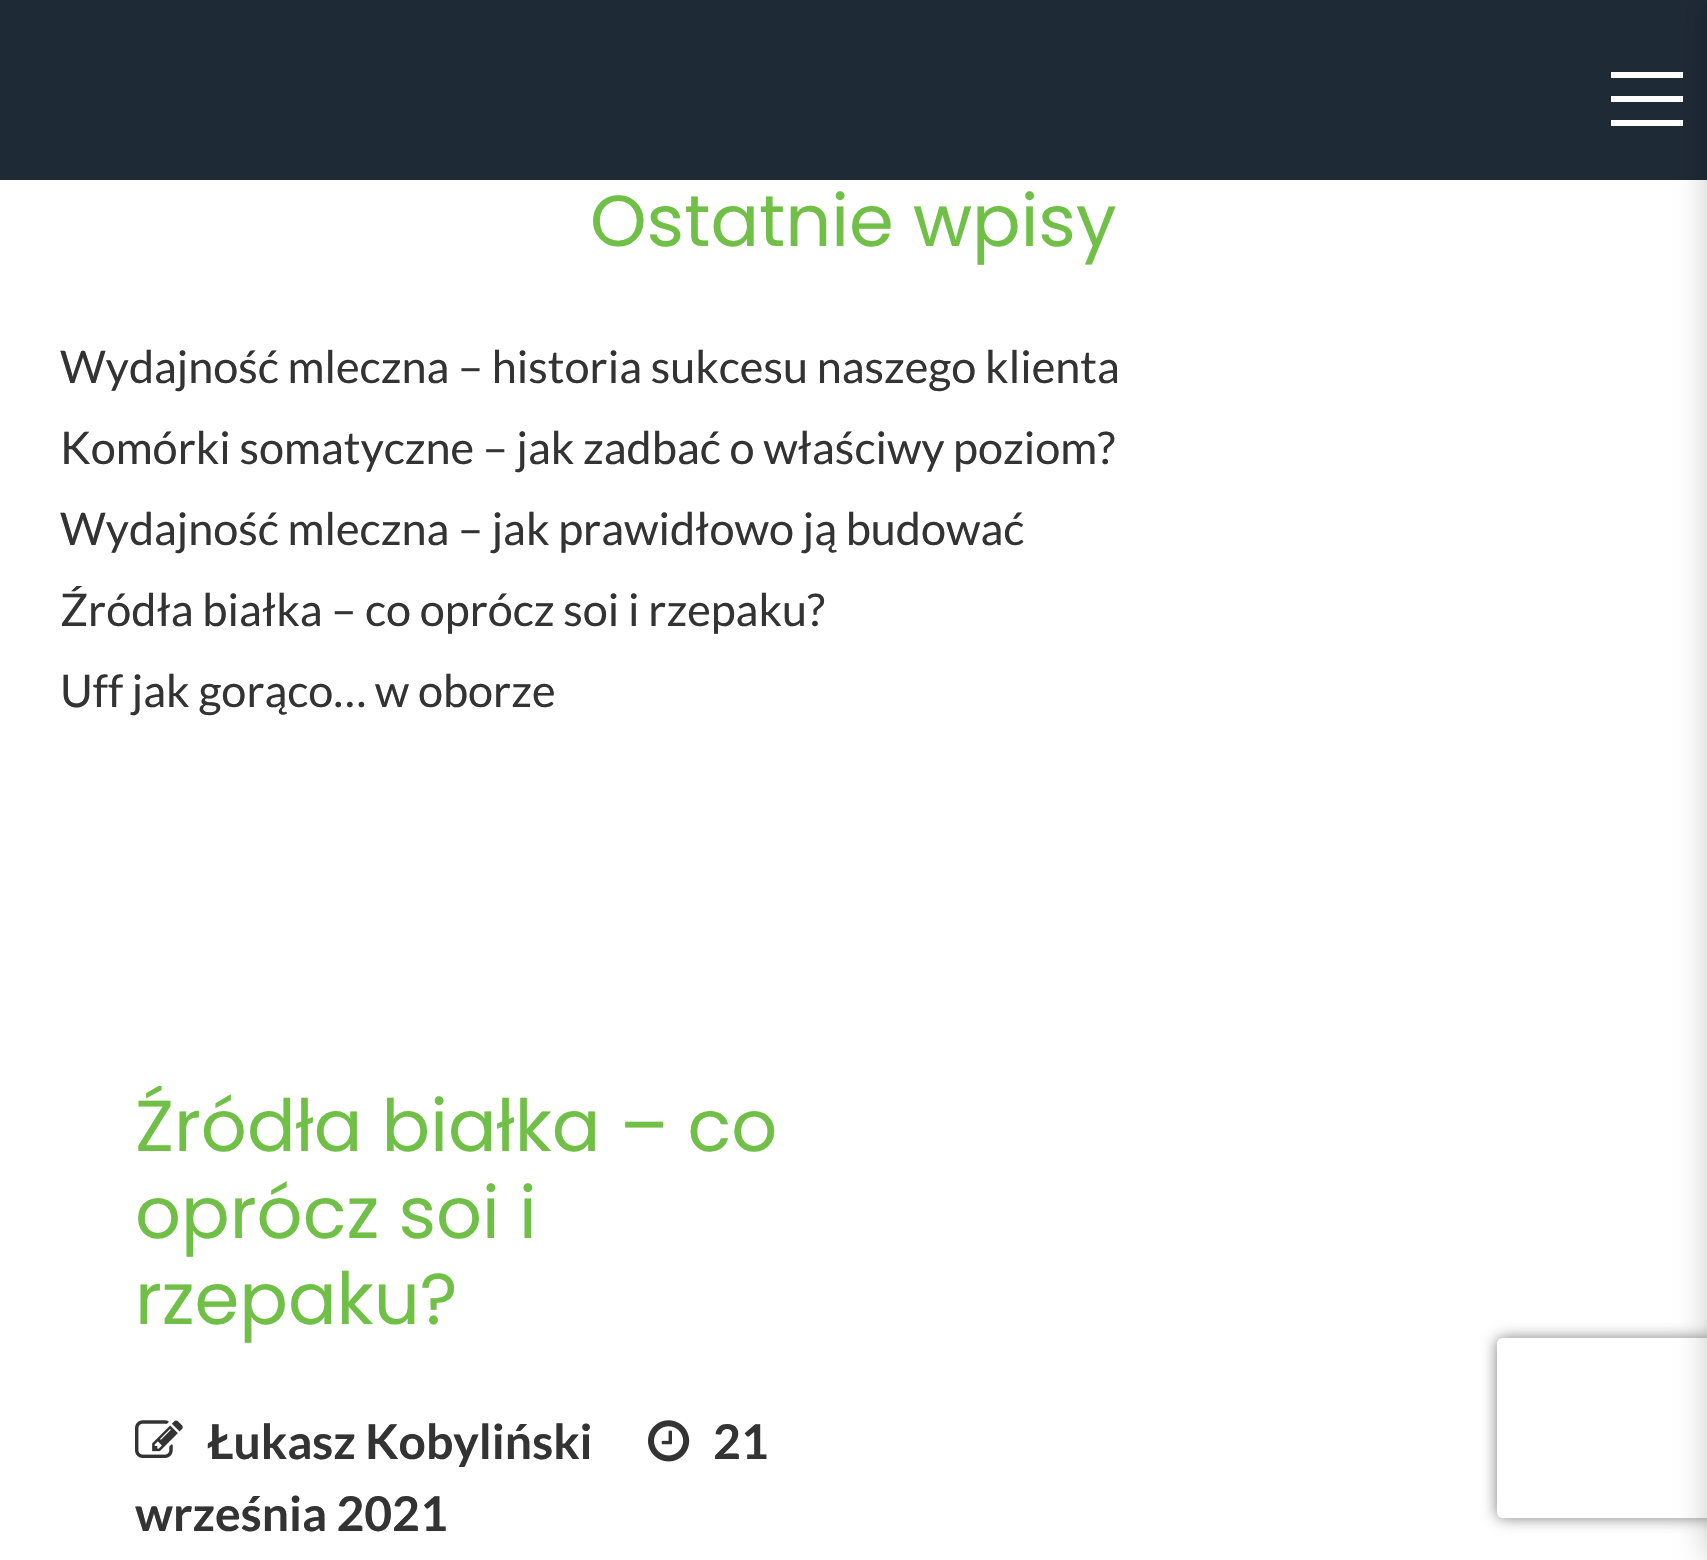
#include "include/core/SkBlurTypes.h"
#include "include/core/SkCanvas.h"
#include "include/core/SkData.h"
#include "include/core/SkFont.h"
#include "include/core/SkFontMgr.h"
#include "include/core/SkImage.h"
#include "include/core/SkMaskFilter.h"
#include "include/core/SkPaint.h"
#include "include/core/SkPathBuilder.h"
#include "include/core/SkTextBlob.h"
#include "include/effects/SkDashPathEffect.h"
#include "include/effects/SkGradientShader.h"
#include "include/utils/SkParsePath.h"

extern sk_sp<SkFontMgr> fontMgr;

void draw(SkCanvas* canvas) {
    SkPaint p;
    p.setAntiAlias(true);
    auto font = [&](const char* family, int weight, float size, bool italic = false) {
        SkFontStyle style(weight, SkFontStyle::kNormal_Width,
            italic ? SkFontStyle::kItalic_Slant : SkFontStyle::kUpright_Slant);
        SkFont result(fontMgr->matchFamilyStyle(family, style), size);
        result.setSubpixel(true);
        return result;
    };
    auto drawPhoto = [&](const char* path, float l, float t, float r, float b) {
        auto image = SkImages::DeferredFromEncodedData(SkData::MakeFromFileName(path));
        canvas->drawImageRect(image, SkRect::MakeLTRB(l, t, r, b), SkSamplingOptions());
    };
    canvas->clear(0xFFFFFFFF);
    {
        const struct { float l, t, r, b; SkColor color; } items[] = {
            {0, 0, 1707, 180, 0xFF1F2A37},
            {1611, 72, 1683, 78, 0xFFFFFFFF},
            {1611, 96, 1683, 102, 0xFFFFFFFF},
            {1611, 120, 1683, 126, 0xFFFFFFFF},
        };
        for (auto [l, t, r, b, color] : items) {
            p.setColor(color);
            canvas->drawRect(SkRect::MakeLTRB(l, t, r, b), p);
        }
    }
    auto font1 = font("Poppins", 400, 72);
    p.setColor(0xFF70BF46);
    canvas->drawString("Ostatnie wpisy", 590, 246, font1, p);
    auto font2 = font("Lato", 400, 45);
    p.setColor(0xFF333333);
    {
        const struct { const char* s; float x, y; } items[] = {
            {"Wydajność mleczna – historia sukcesu naszego klienta", 60, 383},
            {"Komórki somatyczne – jak zadbać o właściwy poziom?", 60, 464},
            {"Wydajność mleczna – jak prawidłowo ją budować", 60, 545},
            {"Źródła białka – co oprócz soi i rzepaku?", 60, 626},
            {"Uff jak gorąco… w oborze", 60, 707},
        };
        for (auto [s, x, y] : items) {
            canvas->drawString(s, x, y, font2, p);
        }
    }
    canvas->save();
    canvas->clipRect(SkRect::MakeLTRB(45, 1086, 855, 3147));
    p.setColor(0xFF70BF46);
    canvas->drawString("Źródła białka – co", 135, 1151, font1, p);
    canvas->restore();
    canvas->drawString("oprócz soi i", 135, 1238, font1, p);
    canvas->drawString("rzepaku?", 135, 1324, font1, p);
    drawPhoto("media/1.png", 648, 1420, 690, 1462);
    auto font3 = font("Lato", 700, 48);
    p.setColor(0xFF333333);
    canvas->drawString("21", 713, 1459, font3, p);
    canvas->drawString("września 2021", 135, 1531, font3, p);
    drawPhoto("media/2.png", 135, 1420, 183, 1458);
    canvas->drawString("Łukasz Kobyliński", 207, 1459, font3, p);
    p.setColor(0x33000000);
    p.setMaskFilter(SkMaskFilter::MakeBlur(kNormal_SkBlurStyle, 15));
    canvas->drawRect(SkRect::MakeLTRB(1707, 0, 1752, 1560), p);
    p.setMaskFilter(nullptr);
    canvas->save();
    canvas->clipPath(SkPathBuilder(SkPathFillType::kEvenOdd).moveTo(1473, 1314).lineTo(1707, 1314).lineTo(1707, 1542).lineTo(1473, 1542).close().moveTo(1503, 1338).lineTo(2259, 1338).cubicTo(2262.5f, 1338, 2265, 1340.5f, 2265, 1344).lineTo(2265, 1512).cubicTo(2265, 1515.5f, 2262.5f, 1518, 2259, 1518).lineTo(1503, 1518).cubicTo(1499.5f, 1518, 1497, 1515.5f, 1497, 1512).lineTo(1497, 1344).cubicTo(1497, 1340.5f, 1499.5f, 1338, 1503, 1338).close().detach(), true);
    p.setColor(0xFF808080);
    p.setMaskFilter(SkMaskFilter::MakeBlur(kNormal_SkBlurStyle, 7.5f));
    canvas->drawRoundRect(SkRect::MakeLTRB(1497, 1338, 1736, 1518), 6, 6, p);
    p.setMaskFilter(nullptr);
    canvas->restore();
}
